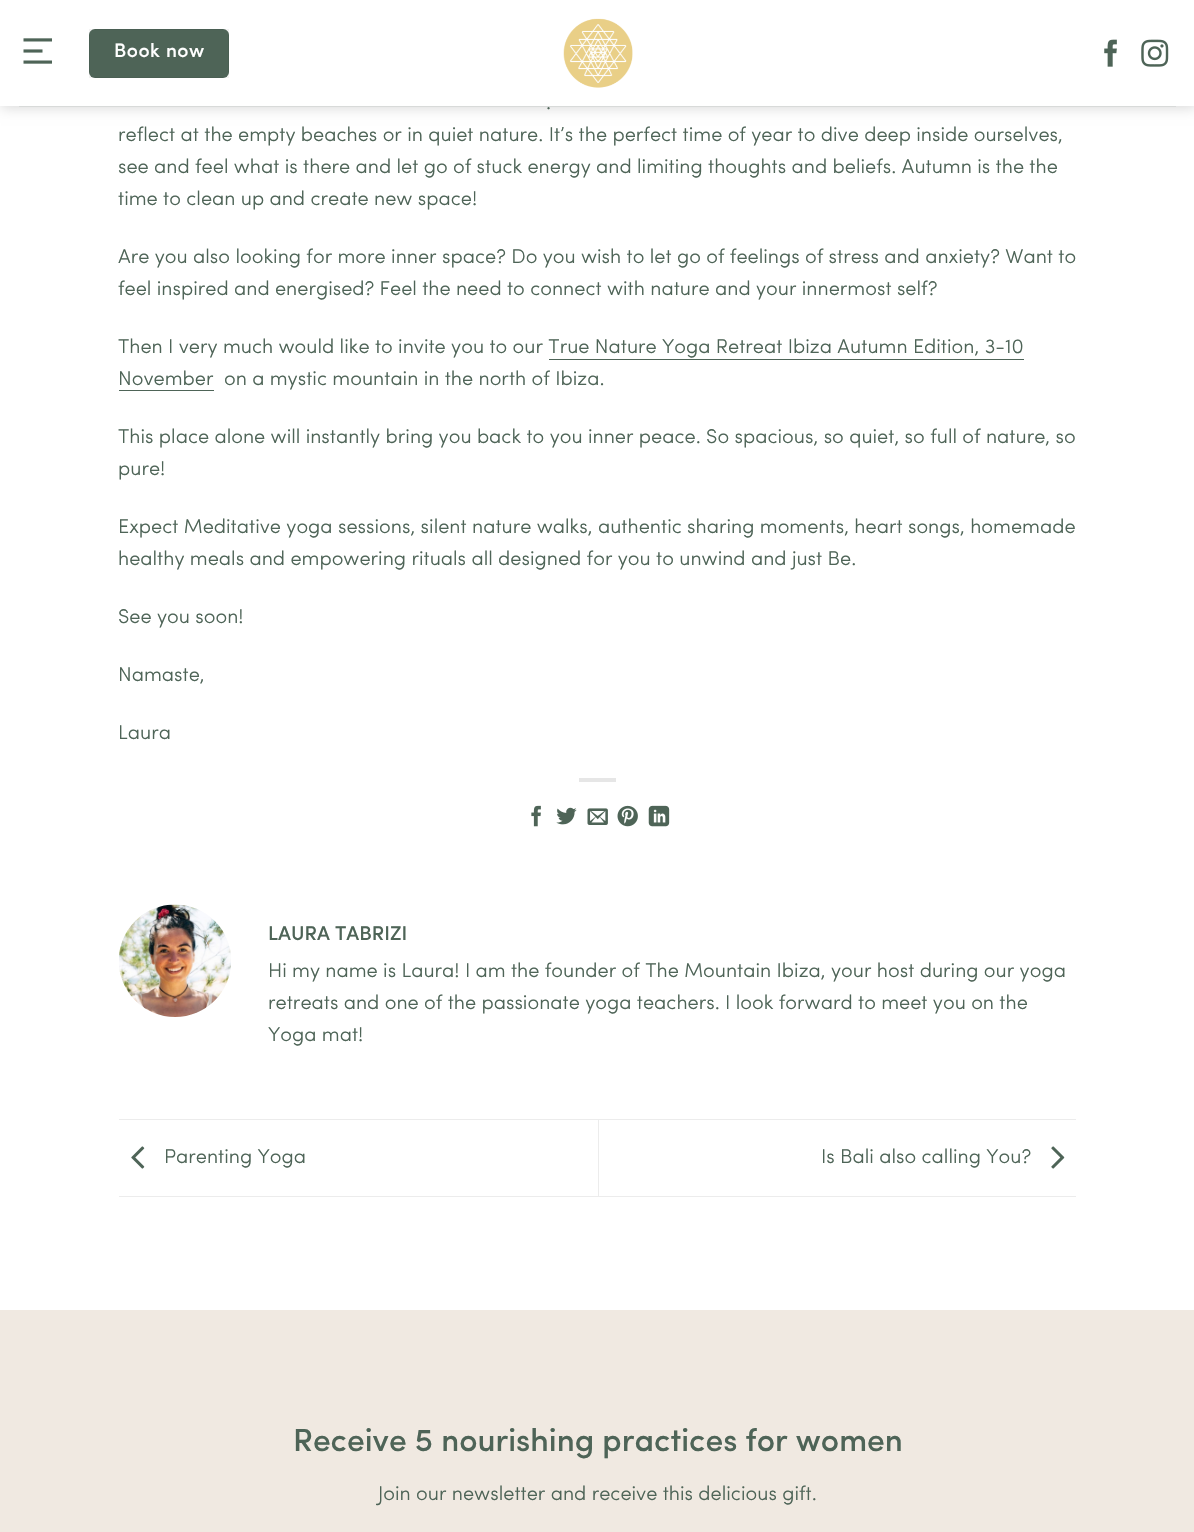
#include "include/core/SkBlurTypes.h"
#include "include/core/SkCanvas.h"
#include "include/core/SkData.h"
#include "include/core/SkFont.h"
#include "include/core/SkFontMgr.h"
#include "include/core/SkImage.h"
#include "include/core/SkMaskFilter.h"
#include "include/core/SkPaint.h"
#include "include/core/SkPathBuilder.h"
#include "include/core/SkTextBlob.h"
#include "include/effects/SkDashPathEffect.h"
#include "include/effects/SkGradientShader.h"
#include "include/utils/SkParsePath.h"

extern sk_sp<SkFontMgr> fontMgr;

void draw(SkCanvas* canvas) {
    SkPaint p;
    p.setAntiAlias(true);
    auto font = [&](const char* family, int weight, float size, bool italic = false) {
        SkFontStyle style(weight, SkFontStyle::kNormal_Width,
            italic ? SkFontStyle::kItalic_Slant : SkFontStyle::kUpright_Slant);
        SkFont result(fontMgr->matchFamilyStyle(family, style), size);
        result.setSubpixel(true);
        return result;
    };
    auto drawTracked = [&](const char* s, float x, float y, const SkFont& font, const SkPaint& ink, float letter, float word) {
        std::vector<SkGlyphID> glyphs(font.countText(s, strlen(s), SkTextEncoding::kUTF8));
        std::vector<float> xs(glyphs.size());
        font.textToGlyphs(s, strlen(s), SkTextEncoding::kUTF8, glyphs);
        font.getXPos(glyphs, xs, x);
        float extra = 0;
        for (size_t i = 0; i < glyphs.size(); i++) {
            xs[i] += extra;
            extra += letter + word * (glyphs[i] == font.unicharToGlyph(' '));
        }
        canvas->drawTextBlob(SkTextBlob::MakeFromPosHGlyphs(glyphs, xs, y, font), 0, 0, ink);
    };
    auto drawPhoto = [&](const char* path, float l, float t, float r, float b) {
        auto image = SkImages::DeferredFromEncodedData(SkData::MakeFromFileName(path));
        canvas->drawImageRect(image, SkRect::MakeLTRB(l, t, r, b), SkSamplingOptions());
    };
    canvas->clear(0xFFFFFFFF);
    p.setColor(0x26000000);
    p.setMaskFilter(SkMaskFilter::MakeBlur(kNormal_SkBlurStyle, 6));
    canvas->drawRect(SkRect::MakeLTRB(1, 1, 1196, 108), p);
    p.setMaskFilter(nullptr);
    p.setColor(0xFFFFFFFF);
    canvas->drawRect(SkRect::MakeLTRB(0, 0, 1194, 106), p);
    drawPhoto("media/1.png", 23, 38, 52, 64);
    p.setColor(0xFF4E6457);
    canvas->drawRoundRect(SkRect::MakeLTRB(89, 29, 229, 78), 6, 6, p);
    p.setStyle(SkPaint::kStroke_Style);
    p.setStrokeWidth(1);
    p.setColor(0x0D000000);
    canvas->drawRect(SkRect::MakeLTRB(89.5f, 29.5f, 228.5f, 77.5f), p);
    auto font1 = font("Sofia", 500, 19.5f);
    p.setStyle(SkPaint::kFill_Style);
    p.setColor(0xFFFFFFFF);
    drawTracked("Book now", 114, 57, font1, p, 0.5f, 0);
    drawPhoto("media/2.png", 563, 18, 633, 88);
    drawPhoto("media/3.png", 1104, 39, 1117, 67);
    drawPhoto("media/4.png", 1141, 39, 1169, 67);
    p.setColor(0x1A4E6457);
    canvas->drawRect(SkRect::MakeLTRB(19, 106, 1176, 107), p);
    auto font2 = font("Sofia", 300, 20);
    p.setColor(0xFF4E6457);
    {
        const struct { const char* s; float x, y; } items[] = {
            {".", 546, 109},
            {"reflect at the empty beaches or in quiet nature. It’s the perfect time of year to dive deep inside ourselves,", 118, 141},
            {"see and feel what is there and let go of stuck energy and limiting thoughts and beliefs. Autumn is the the", 118, 173},
            {"time to clean up and create new space!", 118, 205},
            {"Are you also looking for more inner space? Do you wish to let go of feelings of stress and anxiety? Want to", 118, 263},
            {"feel inspired and energised? Feel the need to connect with nature and your innermost self?", 118, 295},
            {"Then I very much would like to invite you to our True Nature Yoga Retreat Ibiza Autumn Edition, 3-10", 118, 353},
            {"November", 118, 385},
        };
        for (auto [s, x, y] : items) {
            canvas->drawString(s, x, y, font2, p);
        }
    }
    canvas->drawRect(SkRect::MakeLTRB(549, 359, 1024, 360), p);
    canvas->drawRect(SkRect::MakeLTRB(119, 390, 214, 391), p);
    {
        const struct { const char* s; float x, y; } items[] = {
            {"on a mystic mountain in the north of Ibiza.", 224, 385},
            {"This place alone will instantly bring you back to you inner peace. So spacious, so quiet, so full of nature, so", 118, 443},
            {"pure!", 118, 475},
            {"Expect Meditative yoga sessions, silent nature walks, authentic sharing moments, heart songs, homemade", 118, 533},
            {"healthy meals and empowering rituals all designed for you to unwind and just Be.", 118, 565},
            {"See you soon!", 118, 623},
            {"Namaste,", 118, 681},
            {"Laura", 118, 739},
        };
        for (auto [s, x, y] : items) {
            canvas->drawString(s, x, y, font2, p);
        }
    }
    p.setColor(0xFFE6E6E6);
    canvas->drawRect(SkRect::MakeLTRB(579, 778, 616, 782), p);
    drawPhoto("media/5.png", 531, 805, 541, 827);
    drawPhoto("media/6.png", 556, 807, 577, 825);
    drawPhoto("media/7.png", 587, 808, 608, 825);
    drawPhoto("media/8.png", 617, 805, 638, 827);
    drawPhoto("media/9.png", 648, 805, 670, 827);
    drawPhoto("media/10.png", 119, 904, 231, 1017);
    auto font3 = font("Sofia", 500, 20);
    p.setColor(0xFF4E6457);
    canvas->drawString("LAURA TABRIZI", 268, 940, font3, p);
    {
        const struct { const char* s; float x, y; } items[] = {
            {"Hi my name is Laura! I am the founder of The Mountain Ibiza, your host during our yoga", 268, 977},
            {"retreats and one of the passionate yoga teachers. I look forward to meet you on the", 268, 1009},
            {"Yoga mat!", 268, 1041},
        };
        for (auto [s, x, y] : items) {
            canvas->drawString(s, x, y, font2, p);
        }
    }
    p.setColor(0xFFECECEC);
    canvas->drawRect(SkRect::MakeLTRB(119, 1119, 1076, 1120), p);
    canvas->drawRect(SkRect::MakeLTRB(119, 1196, 1076, 1197), p);
    drawPhoto("media/11.png", 131, 1146, 145, 1169);
    p.setColor(0xFF4E6457);
    canvas->drawString("Parenting Yoga", 164, 1163, font2, p);
    p.setColor(0xFFECECEC);
    canvas->drawRect(SkRect::MakeLTRB(598, 1120, 599, 1196), p);
    p.setColor(0xFF4E6457);
    canvas->drawString("Is Bali also calling You?", 821, 1163, font2, p);
    drawPhoto("media/12.png", 1051, 1146, 1065, 1169);
    p.setColor(0xFFF0E9E1);
    canvas->drawRect(SkRect::MakeLTRB(0, 1310, 1194, 1532), p);
    auto font4 = font("Sofia", 500, 32);
    p.setColor(0xFF4E6457);
    canvas->drawString("Receive 5 nourishing practices for women", 293, 1451, font4, p);
    canvas->drawString("Join our newsletter and receive this delicious gift.", 378, 1500, font2, p);
}
